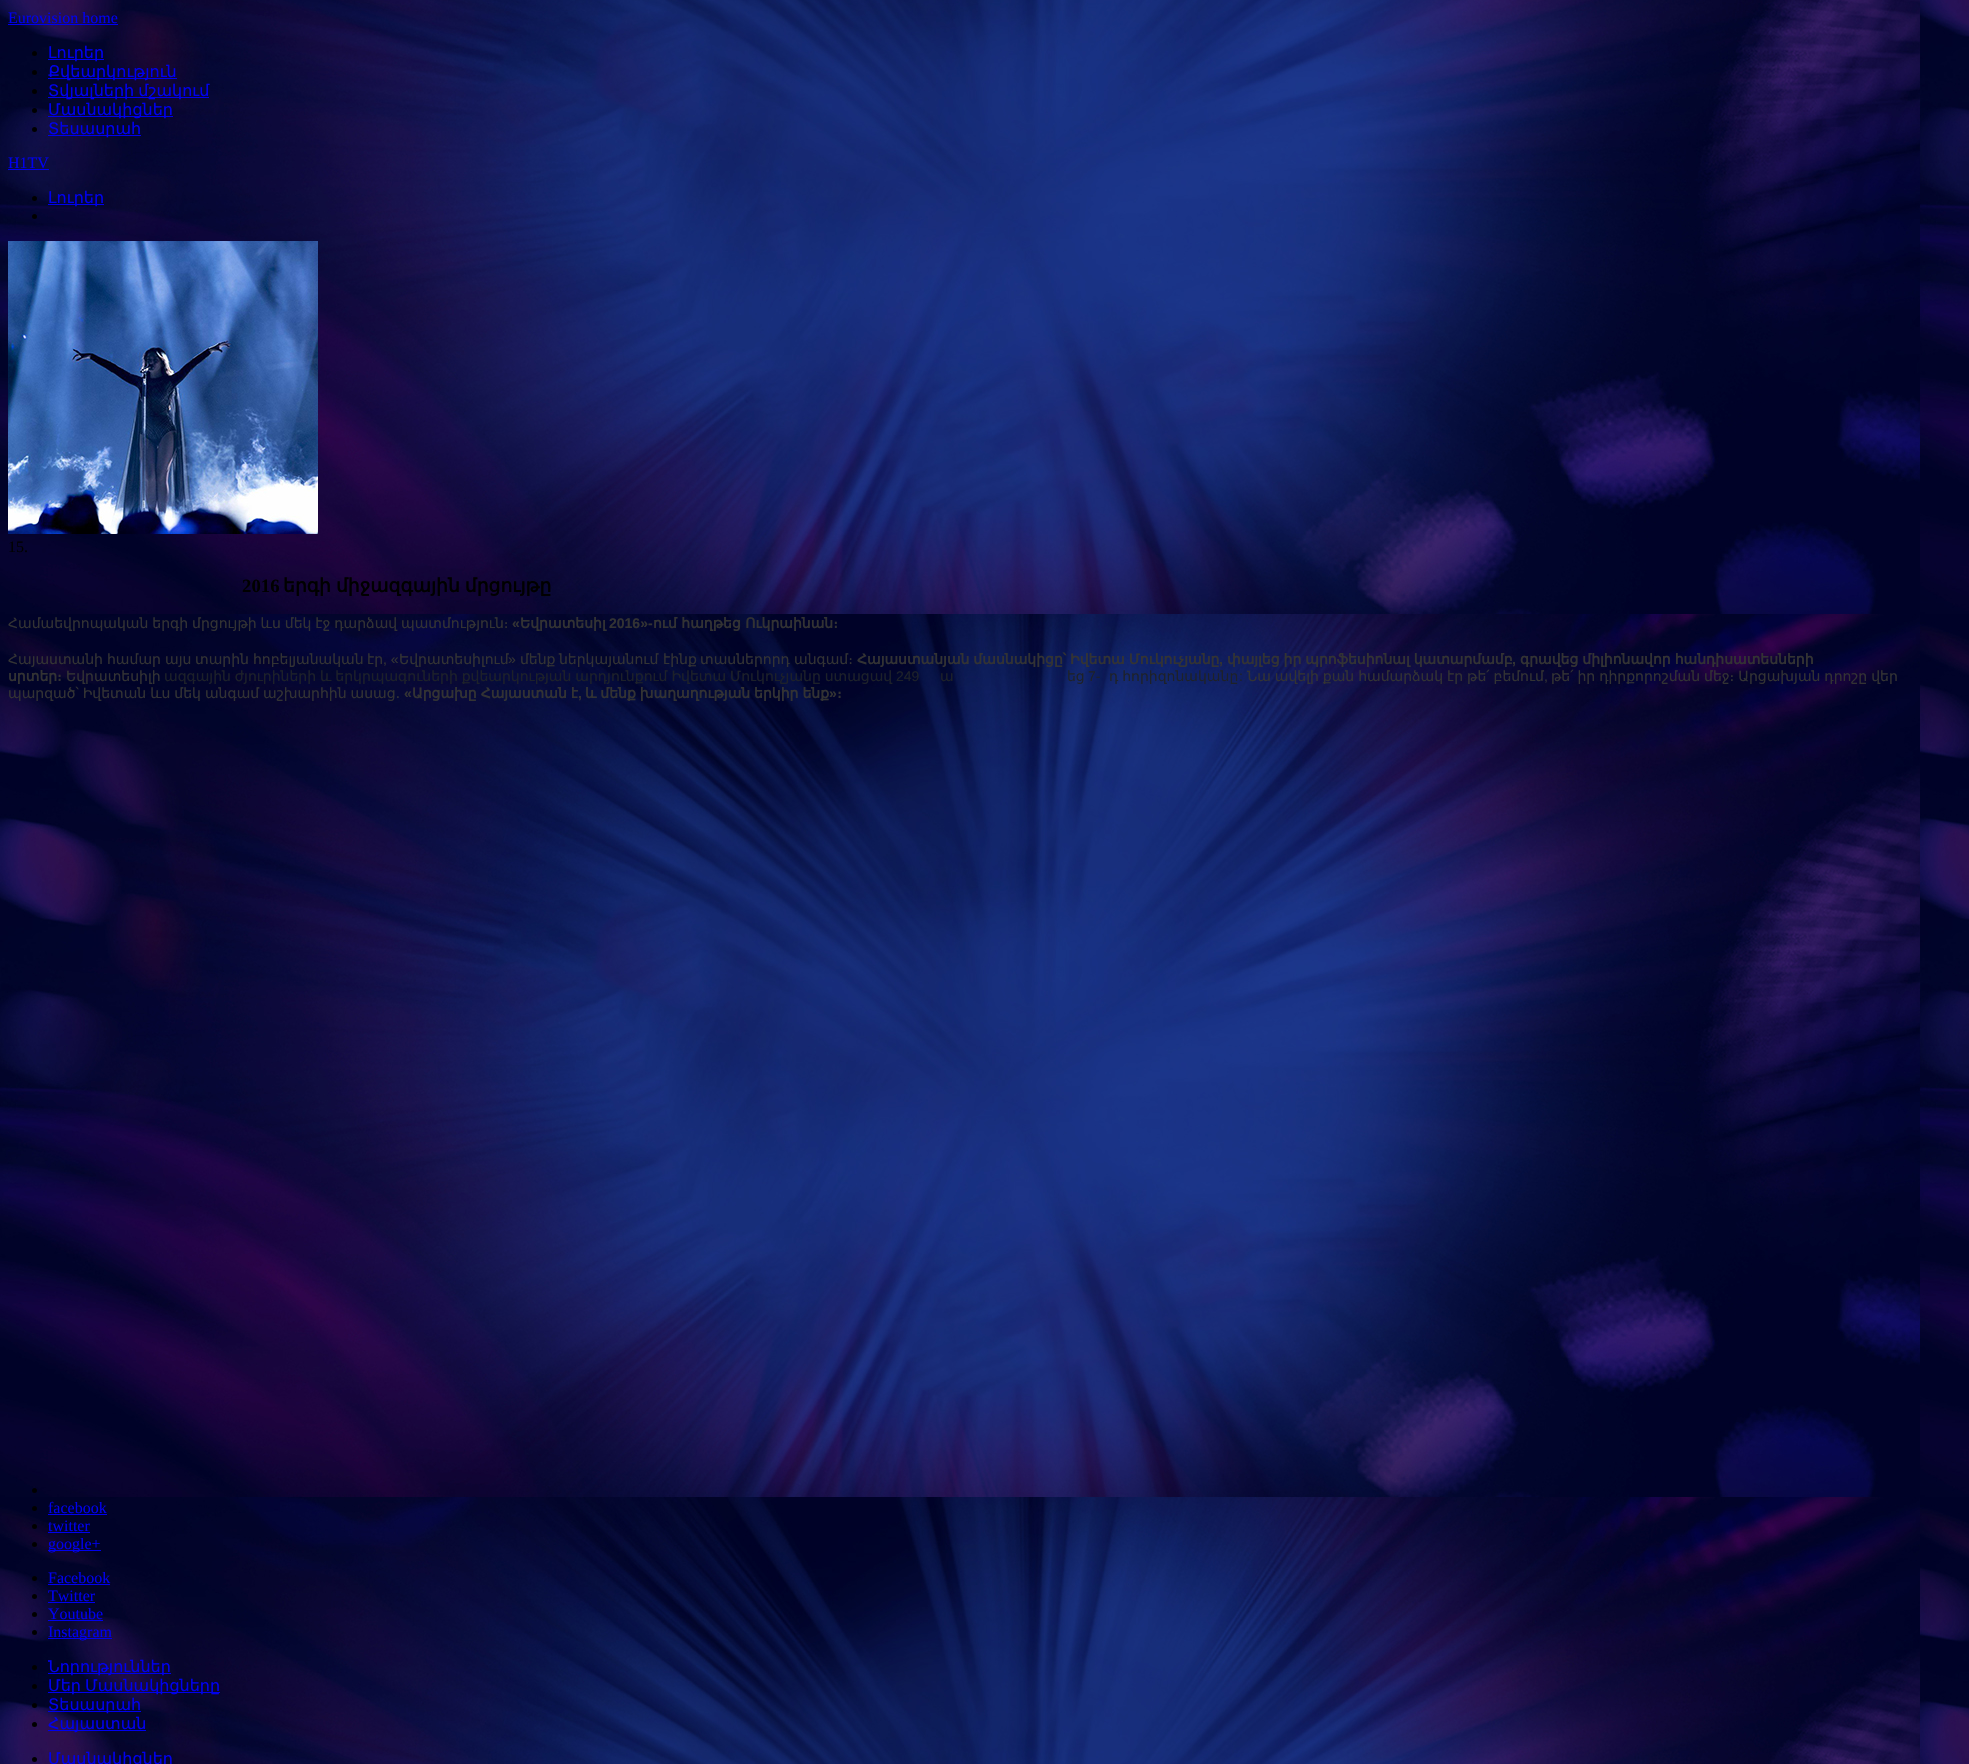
#include "include/core/SkBlurTypes.h"
#include "include/core/SkCanvas.h"
#include "include/core/SkData.h"
#include "include/core/SkFont.h"
#include "include/core/SkFontMgr.h"
#include "include/core/SkImage.h"
#include "include/core/SkMaskFilter.h"
#include "include/core/SkPaint.h"
#include "include/core/SkPathBuilder.h"
#include "include/core/SkTextBlob.h"
#include "include/effects/SkDashPathEffect.h"
#include "include/effects/SkGradientShader.h"
#include "include/utils/SkParsePath.h"

extern sk_sp<SkFontMgr> fontMgr;

void draw(SkCanvas* canvas) {
    SkPaint p;
    p.setAntiAlias(true);
    auto font = [&](const char* family, int weight, float size, bool italic = false) {
        SkFontStyle style(weight, SkFontStyle::kNormal_Width,
            italic ? SkFontStyle::kItalic_Slant : SkFontStyle::kUpright_Slant);
        SkFont result(fontMgr->matchFamilyStyle(family, style), size);
        result.setSubpixel(true);
        return result;
    };
    auto drawTracked = [&](const char* s, float x, float y, const SkFont& font, const SkPaint& ink, float letter, float word) {
        std::vector<SkGlyphID> glyphs(font.countText(s, strlen(s), SkTextEncoding::kUTF8));
        std::vector<float> xs(glyphs.size());
        font.textToGlyphs(s, strlen(s), SkTextEncoding::kUTF8, glyphs);
        font.getXPos(glyphs, xs, x);
        float extra = 0;
        for (size_t i = 0; i < glyphs.size(); i++) {
            xs[i] += extra;
            extra += letter + word * (glyphs[i] == font.unicharToGlyph(' '));
        }
        canvas->drawTextBlob(SkTextBlob::MakeFromPosHGlyphs(glyphs, xs, y, font), 0, 0, ink);
    };
    auto drawPhoto = [&](const char* path, float l, float t, float r, float b) {
        auto image = SkImages::DeferredFromEncodedData(SkData::MakeFromFileName(path));
        canvas->drawImageRect(image, SkRect::MakeLTRB(l, t, r, b), SkSamplingOptions());
    };
    canvas->clear(0xFFFFFFFF);
    drawPhoto("media/1.png", 0, 0, 1969, 1764);
    auto font1 = font("Liberation Serif", 400, 16);
    p.setColor(0xFF0000EE);
    canvas->drawString("Eurovision home", 8, 23, font1, p);
    canvas->drawRect(SkRect::MakeLTRB(8, 24, 118, 25), p);
    p.setColor(0xFF000000);
    canvas->drawCircle(34.5f, 53.5f, 2.5f, p);
    p.setColor(0xFF0000EE);
    canvas->drawRect(SkRect::MakeLTRB(48, 59, 104, 60), p);
    auto font2 = font("DejaVu Sans", 400, 16);
    canvas->drawString("Լուրեր", 48, 58, font2, p);
    p.setColor(0xFF000000);
    canvas->drawCircle(34.5f, 72.5f, 2.5f, p);
    p.setColor(0xFF0000EE);
    canvas->drawRect(SkRect::MakeLTRB(48, 78, 177, 79), p);
    canvas->drawString("Քվեարկություն", 48, 77, font2, p);
    p.setColor(0xFF000000);
    canvas->drawCircle(34.5f, 91.5f, 2.5f, p);
    p.setColor(0xFF0000EE);
    canvas->drawRect(SkRect::MakeLTRB(48, 97, 209, 98), p);
    drawTracked("Տվյալների մշակում", 48, 96, font2, p, 0, -1);
    p.setColor(0xFF000000);
    canvas->drawCircle(34.5f, 110.5f, 2.5f, p);
    p.setColor(0xFF0000EE);
    canvas->drawRect(SkRect::MakeLTRB(48, 116, 173, 117), p);
    canvas->drawString("Մասնակիցներ", 48, 115, font2, p);
    p.setColor(0xFF000000);
    canvas->drawCircle(34.5f, 129.5f, 2.5f, p);
    p.setColor(0xFF0000EE);
    canvas->drawRect(SkRect::MakeLTRB(48, 135, 141, 136), p);
    canvas->drawString("Տեսասրահ", 48, 134, font2, p);
    canvas->drawString("H1TV", 8, 168, font1, p);
    canvas->drawRect(SkRect::MakeLTRB(8, 169, 49, 170), p);
    p.setColor(0xFF000000);
    canvas->drawCircle(34.5f, 198.5f, 2.5f, p);
    p.setColor(0xFF0000EE);
    canvas->drawRect(SkRect::MakeLTRB(48, 204, 104, 205), p);
    canvas->drawString("Լուրեր", 48, 203, font2, p);
    p.setColor(0xFF000000);
    canvas->drawCircle(34.5f, 216.5f, 2.5f, p);
    drawPhoto("media/2.png", 8, 241, 318, 534);
    canvas->drawString("15.", 8, 552, font1, p);
    auto font3 = font("Liberation Serif", 700, 18.75f);
    canvas->drawString("2016", 242, 592, font3, p);
    auto font4 = font("DejaVu Sans", 700, 18.75f);
    drawTracked("երգի միջազգային մրցույթը", 283, 592, font4, p, 0, -1);
    auto font5 = font("DejaVu Sans", 400, 14);
    p.setColor(0xFF333333);
    drawTracked("Համաեվրոպական երգի մրցույթի ևս մեկ էջ դարձավ պատմություն։", 8, 628, font5, p, 0, -0.5f);
    auto font6 = font("Liberation Sans", 700, 14);
    canvas->drawString("«", 512, 628, font6, p);
    auto font7 = font("DejaVu Sans", 700, 14);
    canvas->drawString("Եվրատեսիլ", 520, 628, font7, p);
    canvas->drawString("2016»-", 609, 628, font6, p);
    canvas->drawString("ում հաղթեց Ուկրաինան։", 653, 628, font7, p);
    {
        const struct { const char* s; float x, y; } items[] = {
            {"Հայաստանի", 8, 664},
            {"համար", 107, 664},
            {"այս", 165, 664},
            {"տարին", 195, 664},
            {"հոբելյանական", 253, 664},
            {"էր", 367, 664},
        };
        for (auto [s, x, y] : items) {
            canvas->drawString(s, x, y, font5, p);
        }
    }
    auto font8 = font("Liberation Sans", 400, 14);
    canvas->drawString(", «", 383, 664, font8, p);
    canvas->drawString("Եվրատեսիլում", 399, 664, font5, p);
    canvas->drawString("»", 508, 664, font8, p);
    {
        const struct { const char* s; float x, y; } items[] = {
            {"մենք", 520, 664},
            {"ներկայանում", 559, 664},
            {"էինք", 663, 664},
            {"տասներորդ", 700, 664},
            {"անգամ։", 794, 664},
        };
        for (auto [s, x, y] : items) {
            canvas->drawString(s, x, y, font5, p);
        }
    }
    drawTracked("Հայաստանյան մասնակիցը՝ Իվետա Մուկուչյանը", 857, 664, font7, p, 0, -0.5f);
    canvas->drawString(",", 1219, 664, font6, p);
    drawTracked("փայլեց իր պրոֆեսիոնալ կատարմամբ", 1227, 664, font7, p, 0, -0.5f);
    canvas->drawString(",", 1512, 664, font6, p);
    drawTracked("գրավեց միլիոնավոր հանդիսատեսների", 1520, 664, font7, p, 0, -0.5f);
    canvas->drawString("սրտեր։", 8, 681, font7, p);
    canvas->drawString("Եվրատեսիլի", 66, 681, font5, p);
    p.setColor(0xFF1D2129);
    drawTracked("ազգային ժյուրիների և երկրպագուների քվեարկության արդյունքում Իվետա Մուկուչյանը ստացավ", 164, 681, font5, p, 0, -0.5f);
    canvas->drawString("249", 896, 681, font8, p);
    drawTracked("ա", 940, 681, font5, p, 0, -0.5f);
    drawTracked("եց", 1067, 681, font5, p, 0, -0.5f);
    canvas->drawString("7-", 1088, 681, font8, p);
    drawTracked("դ հորիզոնականը", 1109, 681, font5, p, 0, -0.5f);
    canvas->drawString(":", 1239, 681, font8, p);
    p.setColor(0xFF333333);
    drawTracked("Նա ավելի քան համարձակ էր թե՛ բեմում", 1247, 681, font5, p, 0, -0.5f);
    canvas->drawString(",", 1544, 681, font8, p);
    drawTracked("թե՛ իր դիրքորոշման մեջ։ Արցախյան դրոշը վեր", 1551, 681, font5, p, 0, -0.5f);
    drawTracked("պարզած՝ Իվետան ևս մեկ անգամ աշխարհին ասաց․", 8, 698, font5, p, 0, -0.5f);
    canvas->drawString("«", 404, 698, font6, p);
    drawTracked("Արցախը Հայաստան է", 412, 698, font7, p, 0, -0.5f);
    canvas->drawString(",", 578, 698, font6, p);
    drawTracked("և մենք խաղաղության երկիր ենք", 585, 698, font7, p, 0, -0.5f);
    canvas->drawString("»", 829, 698, font6, p);
    canvas->drawString("։", 837, 698, font7, p);
    p.setColor(0xFF000000);
    canvas->drawCircle(34.5f, 1490.5f, 2.5f, p);
    canvas->drawCircle(34.5f, 1508.5f, 2.5f, p);
    p.setColor(0xFF0000EE);
    canvas->drawString("facebook", 48, 1513, font1, p);
    canvas->drawRect(SkRect::MakeLTRB(48, 1514, 107, 1515), p);
    p.setColor(0xFF000000);
    canvas->drawCircle(34.5f, 1526.5f, 2.5f, p);
    p.setColor(0xFF0000EE);
    canvas->drawString("twitter", 48, 1531, font1, p);
    canvas->drawRect(SkRect::MakeLTRB(48, 1532, 90, 1533), p);
    p.setColor(0xFF000000);
    canvas->drawCircle(34.5f, 1544.5f, 2.5f, p);
    p.setColor(0xFF0000EE);
    canvas->drawRect(SkRect::MakeLTRB(48, 1550, 101, 1551), p);
    canvas->drawString("google+", 48, 1549, font1, p);
    p.setColor(0xFF000000);
    canvas->drawCircle(34.5f, 1578.5f, 2.5f, p);
    p.setColor(0xFF0000EE);
    canvas->drawString("Facebook", 48, 1583, font1, p);
    canvas->drawRect(SkRect::MakeLTRB(48, 1584, 110, 1585), p);
    p.setColor(0xFF000000);
    canvas->drawCircle(34.5f, 1596.5f, 2.5f, p);
    p.setColor(0xFF0000EE);
    canvas->drawString("Twitter", 48, 1601, font1, p);
    canvas->drawRect(SkRect::MakeLTRB(48, 1602, 95, 1603), p);
    p.setColor(0xFF000000);
    canvas->drawCircle(34.5f, 1614.5f, 2.5f, p);
    p.setColor(0xFF0000EE);
    canvas->drawString("Youtube", 48, 1619, font1, p);
    canvas->drawRect(SkRect::MakeLTRB(48, 1620, 103, 1621), p);
    p.setColor(0xFF000000);
    canvas->drawCircle(34.5f, 1632.5f, 2.5f, p);
    p.setColor(0xFF0000EE);
    canvas->drawRect(SkRect::MakeLTRB(48, 1638, 112, 1639), p);
    canvas->drawString("Instagram", 48, 1637, font1, p);
    p.setColor(0xFF000000);
    canvas->drawCircle(34.5f, 1667.5f, 2.5f, p);
    p.setColor(0xFF0000EE);
    canvas->drawRect(SkRect::MakeLTRB(48, 1673, 171, 1674), p);
    canvas->drawString("Նորություններ", 48, 1672, font2, p);
    p.setColor(0xFF000000);
    canvas->drawCircle(34.5f, 1686.5f, 2.5f, p);
    p.setColor(0xFF0000EE);
    canvas->drawRect(SkRect::MakeLTRB(48, 1692, 220, 1693), p);
    drawTracked("Մեր Մասնակիցները", 48, 1691, font2, p, 0, -1);
    p.setColor(0xFF000000);
    canvas->drawCircle(34.5f, 1705.5f, 2.5f, p);
    p.setColor(0xFF0000EE);
    canvas->drawRect(SkRect::MakeLTRB(48, 1711, 141, 1712), p);
    canvas->drawString("Տեսասրահ", 48, 1710, font2, p);
    p.setColor(0xFF000000);
    canvas->drawCircle(34.5f, 1724.5f, 2.5f, p);
    p.setColor(0xFF0000EE);
    canvas->drawRect(SkRect::MakeLTRB(48, 1730, 146, 1731), p);
    canvas->drawString("Հայաստան", 48, 1729, font2, p);
    p.setColor(0xFF000000);
    canvas->drawCircle(34.5f, 1759.5f, 2.5f, p);
    p.setColor(0xFF0000EE);
    canvas->drawString("Մասնակիցներ", 48, 1764, font2, p);
}
